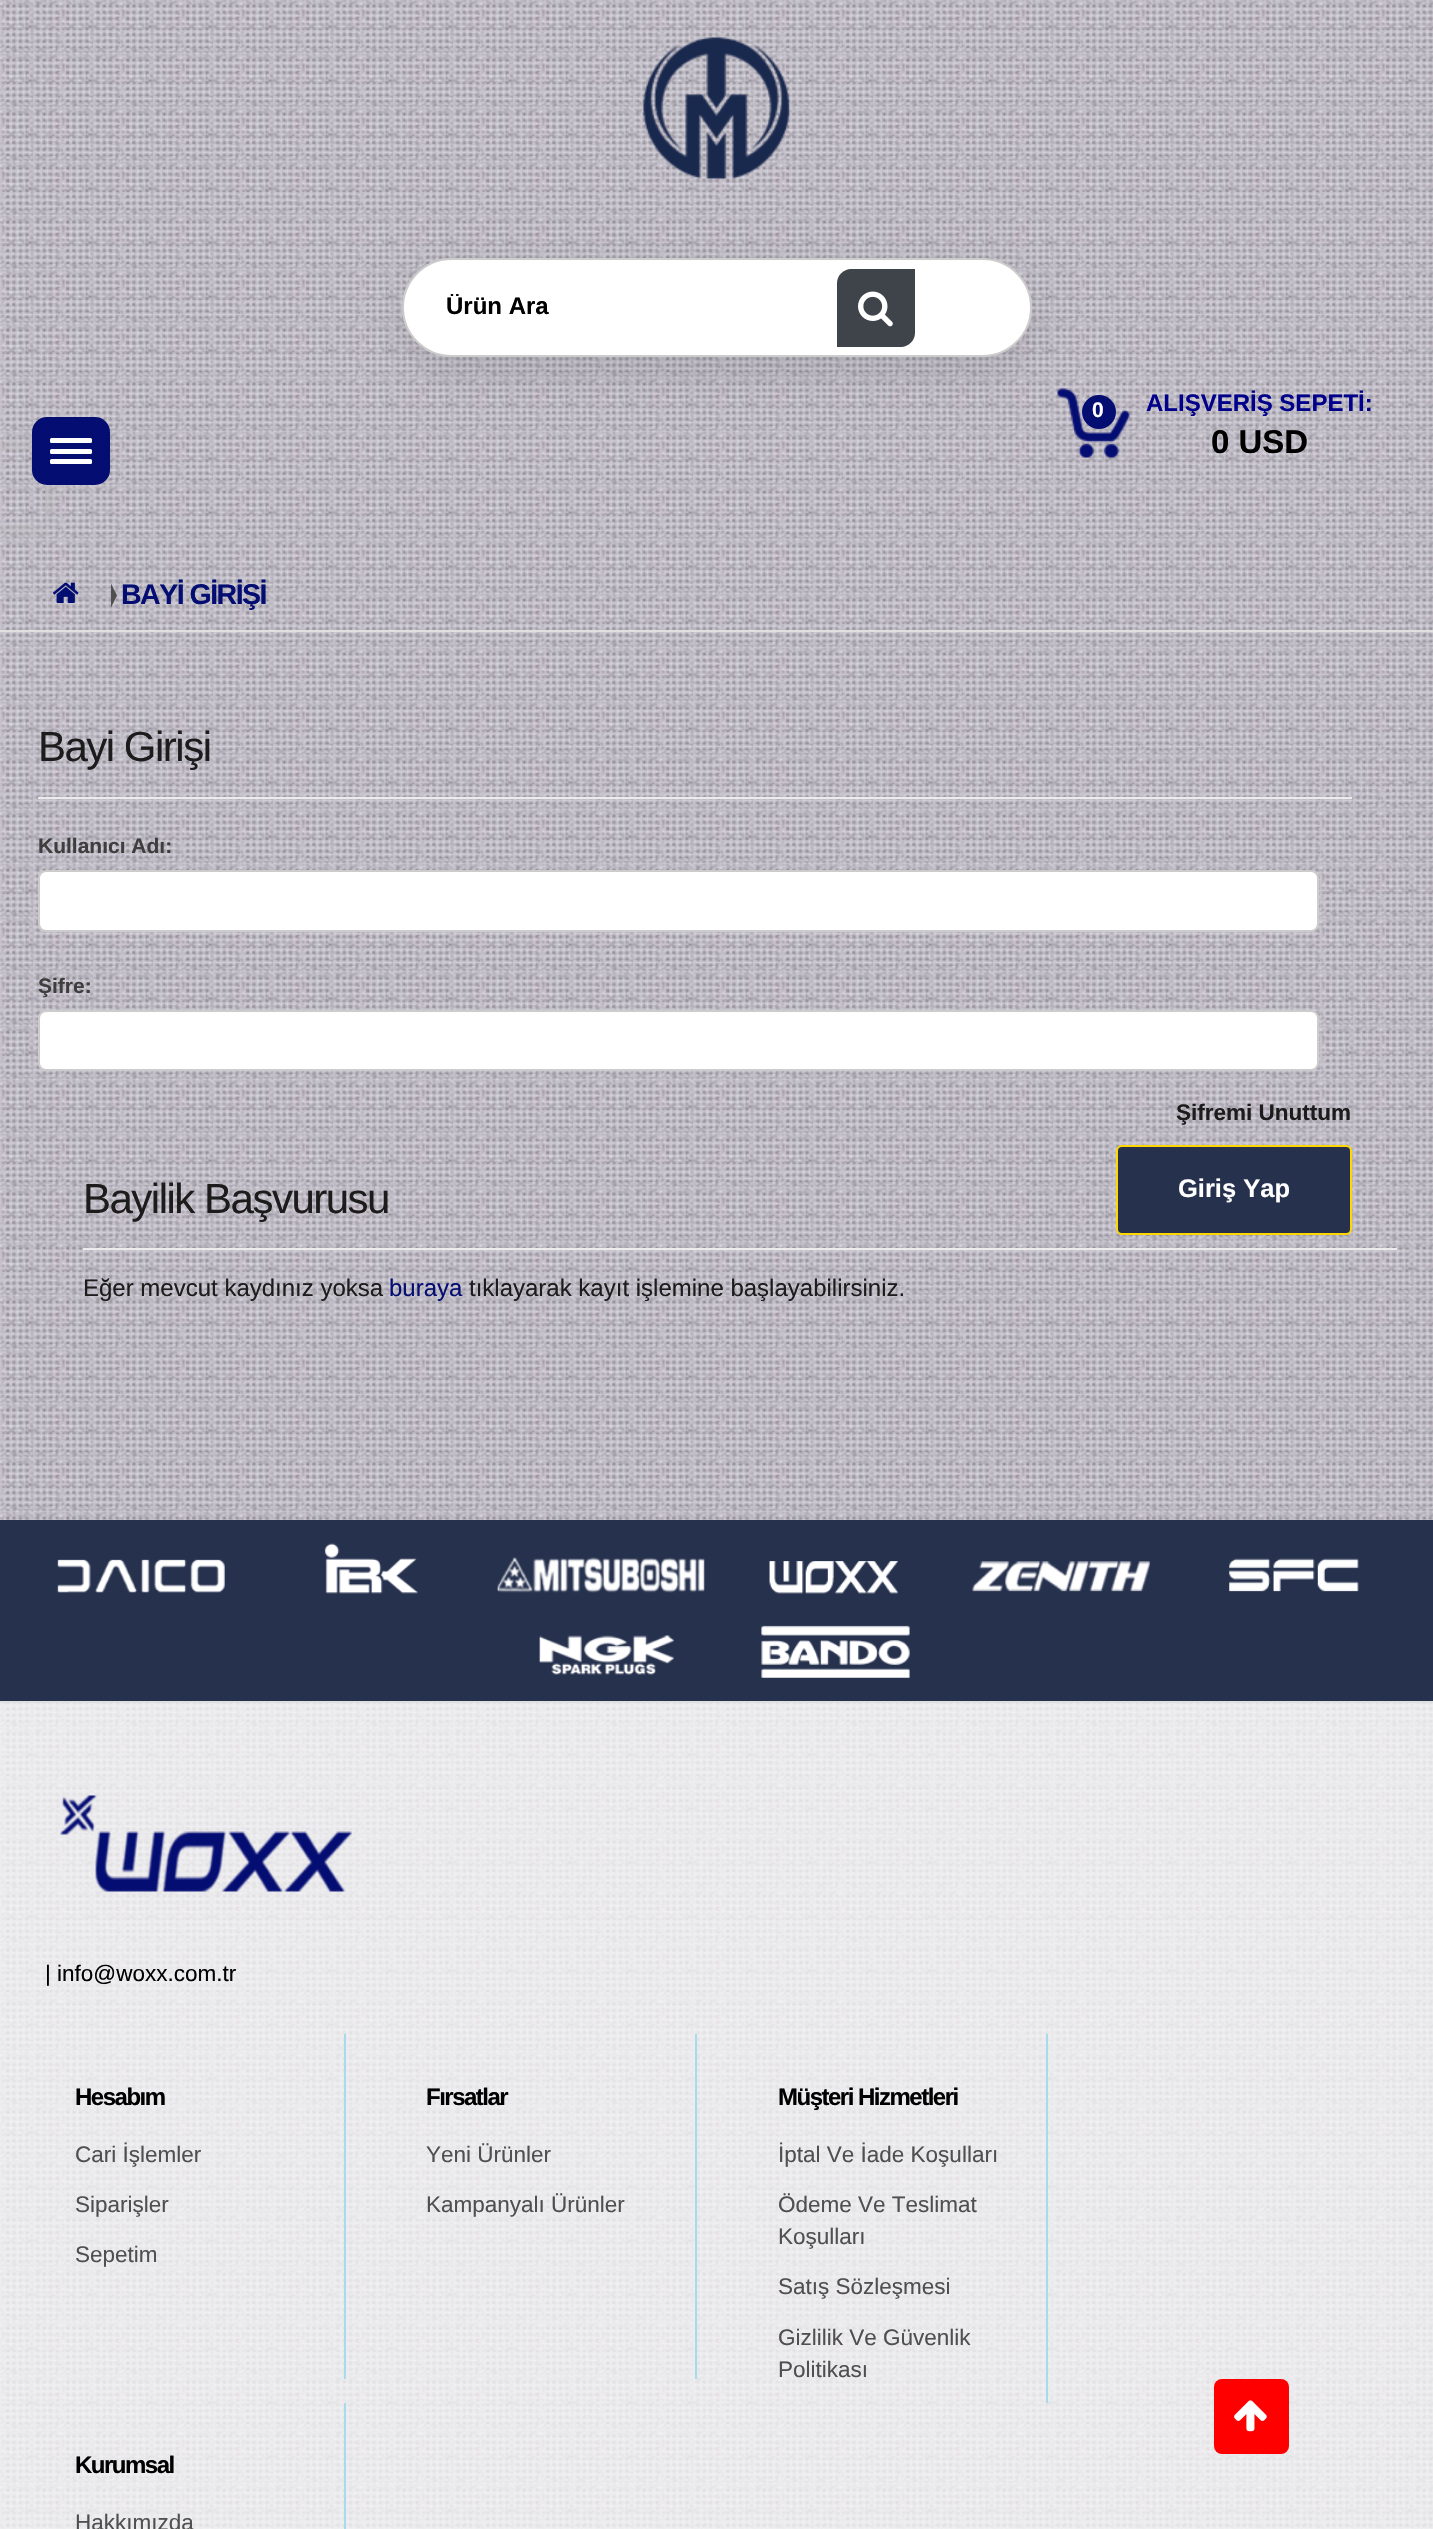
#include "include/core/SkBlurTypes.h"
#include "include/core/SkCanvas.h"
#include "include/core/SkData.h"
#include "include/core/SkFont.h"
#include "include/core/SkFontMgr.h"
#include "include/core/SkImage.h"
#include "include/core/SkMaskFilter.h"
#include "include/core/SkPaint.h"
#include "include/core/SkPathBuilder.h"
#include "include/core/SkTextBlob.h"
#include "include/effects/SkDashPathEffect.h"
#include "include/effects/SkGradientShader.h"
#include "include/utils/SkParsePath.h"

extern sk_sp<SkFontMgr> fontMgr;

void draw(SkCanvas* canvas) {
    SkPaint p;
    p.setAntiAlias(true);
    auto font = [&](const char* family, int weight, float size, bool italic = false) {
        SkFontStyle style(weight, SkFontStyle::kNormal_Width,
            italic ? SkFontStyle::kItalic_Slant : SkFontStyle::kUpright_Slant);
        SkFont result(fontMgr->matchFamilyStyle(family, style), size);
        result.setSubpixel(true);
        return result;
    };
    auto drawTracked = [&](const char* s, float x, float y, const SkFont& font, const SkPaint& ink, float letter, float word) {
        std::vector<SkGlyphID> glyphs(font.countText(s, strlen(s), SkTextEncoding::kUTF8));
        std::vector<float> xs(glyphs.size());
        font.textToGlyphs(s, strlen(s), SkTextEncoding::kUTF8, glyphs);
        font.getXPos(glyphs, xs, x);
        float extra = 0;
        for (size_t i = 0; i < glyphs.size(); i++) {
            xs[i] += extra;
            extra += letter + word * (glyphs[i] == font.unicharToGlyph(' '));
        }
        canvas->drawTextBlob(SkTextBlob::MakeFromPosHGlyphs(glyphs, xs, y, font), 0, 0, ink);
    };
    auto drawPhoto = [&](const char* path, float l, float t, float r, float b) {
        auto image = SkImages::DeferredFromEncodedData(SkData::MakeFromFileName(path));
        canvas->drawImageRect(image, SkRect::MakeLTRB(l, t, r, b), SkSamplingOptions());
    };
    canvas->clear(0xFFFFFFFF);
    drawPhoto("media/1.png", 0, 0, 1433, 2529);
    p.setColor(0xFFE0E0E0);
    canvas->drawRect(SkRect::MakeLTRB(0, 630, 1433, 632), p);
    drawPhoto("media/2.png", 643, 37, 790, 179);
    p.setColor(0x1A000000);
    p.setMaskFilter(SkMaskFilter::MakeBlur(kNormal_SkBlurStyle, 22.5f));
    canvas->drawRoundRect(SkRect::MakeLTRB(402, 273, 1032, 372), 49.5f, 49.5f, p);
    p.setMaskFilter(nullptr);
    p.setColor(0xFFFFFFFF);
    canvas->drawRoundRect(SkRect::MakeLTRB(403, 259, 1031, 356), 48.5f, 48.5f, p);
    p.setStyle(SkPaint::kStroke_Style);
    p.setStrokeWidth(2);
    p.setColor(0xFFCCCCCC);
    canvas->drawRoundRect(SkRect::MakeLTRB(403, 259, 1031, 356), 48.5f, 48.5f, p);
    canvas->save();
    canvas->clipRect(SkRect::MakeLTRB(446, 294, 810, 321));
    auto font1 = font("Liberation Sans", 700, 24);
    p.setStyle(SkPaint::kFill_Style);
    p.setColor(0xFF000000);
    canvas->drawString("Ürün Ara", 446, 314, font1, p);
    canvas->restore();
    p.setColor(0xFF3E444A);
    canvas->drawPath(SkPathBuilder().moveTo(851, 269).lineTo(915, 269).lineTo(915, 333).cubicTo(915, 340.5f, 908.5f, 347, 901, 347).lineTo(837, 347).lineTo(837, 283).cubicTo(837, 275.5f, 843.5f, 269, 851, 269).close().detach(), p);
    drawPhoto("media/3.png", 858, 291, 893, 327);
    drawPhoto("media/4.png", 1057, 388, 1130, 458);
    p.setColor(0xFF040D72);
    canvas->drawCircle(1099, 412, 17, p);
    auto font2 = font("Liberation Sans", 700, 21);
    p.setColor(0xFFFFFFFF);
    canvas->drawString("0", 1092, 417, font2, p);
    p.setColor(0xFF00008B);
    canvas->drawString("ALIŞVERİŞ SEPETİ:", 1146, 411, font1, p);
    auto font3 = font("Liberation Sans", 700, 33);
    p.setColor(0xFF000000);
    canvas->drawString("0 USD", 1211, 453, font3, p);
    canvas->save();
    canvas->clipPath(SkPathBuilder(SkPathFillType::kEvenOdd).moveTo(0, 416).lineTo(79, 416).lineTo(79, 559).lineTo(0, 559).close().moveTo(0, 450).lineTo(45, 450).lineTo(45, 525).lineTo(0, 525).close().detach(), true);
    p.setColor(0xFFBABABA);
    p.setMaskFilter(SkMaskFilter::MakeBlur(kNormal_SkBlurStyle, 11));
    canvas->drawRect(SkRect::MakeLTRB(0, 450, 45, 525), p);
    p.setMaskFilter(nullptr);
    canvas->restore();
    p.setColor(0xFF040D72);
    canvas->drawRoundRect(SkRect::MakeLTRB(32, 417, 110, 485), 15, 15, p);
    p.setColor(0xFFFFFFFF);
    canvas->drawRoundRect(SkRect::MakeLTRB(50, 438, 92, 443), 1.5f, 1.5f, p);
    canvas->drawRoundRect(SkRect::MakeLTRB(50, 449, 92, 454), 1.5f, 1.5f, p);
    canvas->drawRoundRect(SkRect::MakeLTRB(50, 459, 92, 464), 1.5f, 1.5f, p);
    drawPhoto("media/5.png", 53, 582, 79, 603);
    p.setColor(0xFF4F4F4F);
    canvas->drawPath(SkPathBuilder().moveTo(111, 607.5f).lineTo(111, 583.5f).lineTo(117, 595.5f).close().detach(), p);
    auto font4 = font("Liberation Sans", 700, 28.5f);
    p.setColor(0xFF040D72);
    drawTracked("BAYİ GİRİŞİ", 121, 604, font4, p, -1.5f, 0);
    p.setColor(0xFFECECEC);
    canvas->drawRect(SkRect::MakeLTRB(38, 797, 1352, 799), p);
    auto font5 = font("Liberation Sans", 400, 42);
    p.setColor(0xFF1C1C1C);
    drawTracked("Bayi Girişi", 38, 761, font5, p, -1.5f, 0);
    p.setColor(0xFF3E3E3E);
    canvas->drawString("Kullanıcı Adı:", 38, 853, font2, p);
    p.setColor(0xFFFFFFFF);
    canvas->drawRoundRect(SkRect::MakeLTRB(39, 871, 1318, 931), 7, 7, p);
    p.setStyle(SkPaint::kStroke_Style);
    p.setColor(0xFFCCCCCC);
    canvas->drawRoundRect(SkRect::MakeLTRB(39, 871, 1318, 931), 7, 7, p);
    p.setStyle(SkPaint::kFill_Style);
    p.setColor(0xFF3E3E3E);
    canvas->drawString("Şifre:", 38, 993, font2, p);
    p.setColor(0xFFFFFFFF);
    canvas->drawRoundRect(SkRect::MakeLTRB(39, 1011, 1318, 1070), 7, 7, p);
    p.setStyle(SkPaint::kStroke_Style);
    p.setColor(0xFFCCCCCC);
    canvas->drawRoundRect(SkRect::MakeLTRB(39, 1011, 1318, 1070), 7, 7, p);
    auto font6 = font("Liberation Sans", 700, 22.5f);
    p.setStyle(SkPaint::kFill_Style);
    p.setColor(0xFF1C1C1C);
    canvas->drawString("Şifremi Unuttum", 1176, 1120, font6, p);
    p.setColor(0xFF26314E);
    canvas->drawRoundRect(SkRect::MakeLTRB(1117, 1146, 1351, 1234), 5, 5, p);
    p.setStyle(SkPaint::kStroke_Style);
    p.setColor(0xFFFFD700);
    canvas->drawRoundRect(SkRect::MakeLTRB(1117, 1146, 1351, 1234), 5, 5, p);
    auto font7 = font("Liberation Sans", 700, 25.5f);
    p.setStyle(SkPaint::kFill_Style);
    p.setColor(0xFFFFFFFF);
    canvas->drawString("Giriş Yap", 1178, 1197, font7, p);
    p.setColor(0xFFECECEC);
    canvas->drawRect(SkRect::MakeLTRB(83, 1248, 1397, 1250), p);
    p.setColor(0xFF1C1C1C);
    drawTracked("Bayilik Başvurusu", 83, 1213, font5, p, -1.5f, 0);
    auto font8 = font("Liberation Sans", 400, 24);
    canvas->drawString("Eğer mevcut kaydınız yoksa", 83, 1296, font8, p);
    p.setColor(0xFF040D72);
    canvas->drawString("buraya", 389, 1296, font8, p);
    p.setColor(0xFF1C1C1C);
    canvas->drawString("tıklayarak kayıt işlemine başlayabilirsiniz.", 469, 1296, font8, p);
    p.setColor(0xFF26314E);
    canvas->drawRect(SkRect::MakeLTRB(0, 1520, 1433, 1701), p);
    drawPhoto("media/6.png", 57, 1559, 225, 1593);
    drawPhoto("media/7.png", 324, 1543, 419, 1594);
    drawPhoto("media/8.png", 497, 1557, 705, 1593);
    drawPhoto("media/9.png", 769, 1561, 898, 1594);
    drawPhoto("media/10.png", 972, 1561, 1150, 1592);
    drawPhoto("media/11.png", 1229, 1558, 1359, 1592);
    drawPhoto("media/12.png", 539, 1635, 674, 1675);
    drawPhoto("media/13.png", 761, 1625, 910, 1678);
    p.setColor(0xBFF9F9F9);
    canvas->drawRect(SkRect::MakeLTRB(0, 1703, 1433, 2529), p);
    p.setColor(0xFFE0E0E0);
    canvas->drawRect(SkRect::MakeLTRB(0, 1701, 1433, 1703), p);
    drawPhoto("media/14.png", 60, 1795, 352, 1892);
    auto font9 = font("Liberation Sans", 400, 22.5f);
    p.setColor(0xFF000000);
    canvas->drawString("| info@woxx.com.tr", 45, 1981, font9, p);
    p.setColor(0xFFA7DAED);
    canvas->drawRect(SkRect::MakeLTRB(344, 2034, 346, 2379), p);
    p.setColor(0xFF000000);
    drawTracked("Hesabım", 75, 2105, font1, p, -1.5f, 0);
    p.setColor(0xFF4F4F4F);
    {
        const struct { const char* s; float x, y; } items[] = {
            {"Cari İşlemler", 75, 2162},
            {"Siparişler", 75, 2212},
            {"Sepetim", 75, 2262},
        };
        for (auto [s, x, y] : items) {
            canvas->drawString(s, x, y, font9, p);
        }
    }
    p.setColor(0xFFA7DAED);
    canvas->drawRect(SkRect::MakeLTRB(695, 2034, 697, 2379), p);
    p.setColor(0xFF000000);
    drawTracked("Fırsatlar", 426, 2105, font1, p, -1.5f, 0);
    p.setColor(0xFF4F4F4F);
    canvas->drawString("Yeni Ürünler", 426, 2162, font9, p);
    canvas->drawString("Kampanyalı Ürünler", 426, 2212, font9, p);
    p.setColor(0xFFA7DAED);
    canvas->drawRect(SkRect::MakeLTRB(1046, 2034, 1048, 2403), p);
    p.setColor(0xFF000000);
    drawTracked("Müşteri Hizmetleri", 778, 2105, font1, p, -1.5f, 0);
    p.setColor(0xFF4F4F4F);
    {
        const struct { const char* s; float x, y; } items[] = {
            {"İptal Ve İade Koşulları", 778, 2162},
            {"Ödeme Ve Teslimat", 778, 2212},
            {"Koşulları", 778, 2244},
            {"Satış Sözleşmesi", 778, 2294},
            {"Gizlilik Ve Güvenlik", 778, 2345},
            {"Politikası", 778, 2377},
        };
        for (auto [s, x, y] : items) {
            canvas->drawString(s, x, y, font9, p);
        }
    }
    p.setColor(0xFFA7DAED);
    canvas->drawRect(SkRect::MakeLTRB(344, 2403, 346, 2529), p);
    p.setColor(0xFF000000);
    drawTracked("Kurumsal", 75, 2473, font1, p, -1.5f, 0);
    p.setColor(0xFF4F4F4F);
    canvas->drawString("Hakkımızda", 75, 2530, font9, p);
    p.setColor(0xFFFF0000);
    canvas->drawRoundRect(SkRect::MakeLTRB(1214, 2379, 1289, 2454), 8, 8, p);
    drawPhoto("media/15.png", 1234, 2400, 1267, 2432);
}
